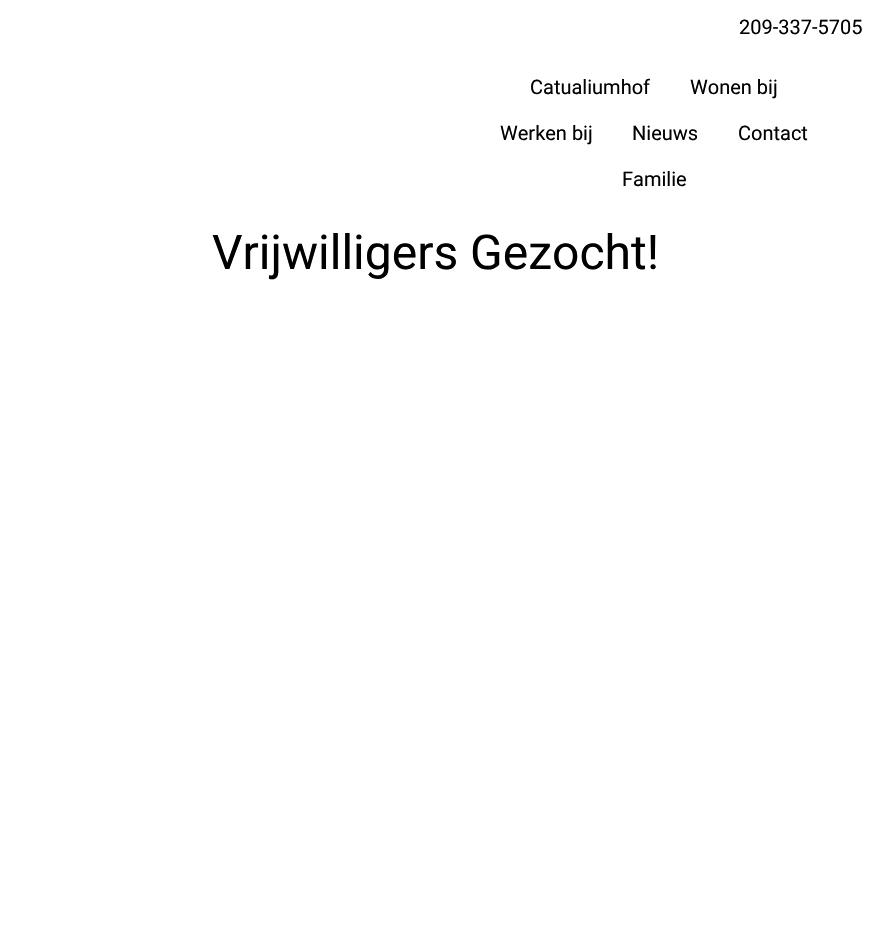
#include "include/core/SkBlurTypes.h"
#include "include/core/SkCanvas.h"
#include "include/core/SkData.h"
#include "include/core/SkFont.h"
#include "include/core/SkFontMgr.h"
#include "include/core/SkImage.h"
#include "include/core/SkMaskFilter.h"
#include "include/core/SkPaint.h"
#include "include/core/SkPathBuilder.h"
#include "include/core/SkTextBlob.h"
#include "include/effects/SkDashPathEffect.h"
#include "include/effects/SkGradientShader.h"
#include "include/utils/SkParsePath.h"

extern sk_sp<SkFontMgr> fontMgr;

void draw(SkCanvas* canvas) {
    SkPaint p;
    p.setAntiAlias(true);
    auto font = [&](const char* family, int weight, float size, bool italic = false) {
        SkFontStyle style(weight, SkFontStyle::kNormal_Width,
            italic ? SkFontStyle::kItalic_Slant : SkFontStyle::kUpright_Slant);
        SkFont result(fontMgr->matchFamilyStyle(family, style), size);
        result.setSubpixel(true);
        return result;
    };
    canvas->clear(0xFFFFFFFF);
    auto font1 = font("Roboto", 400, 20);
    p.setColor(0xFF000000);
    {
        const struct { const char* s; float x, y; } items[] = {
            {"209-337-5705", 739, 34},
            {"Catualiumhof", 530, 94},
            {"Wonen bij", 690, 94},
            {"Werken bij", 500, 140},
            {"Nieuws", 632, 140},
            {"Contact", 738, 140},
            {"Familie", 622, 186},
        };
        for (auto [s, x, y] : items) {
            canvas->drawString(s, x, y, font1, p);
        }
    }
    auto font2 = font("Roboto", 400, 48);
    canvas->drawString("Vrijwilligers Gezocht!", 212, 269, font2, p);
}
